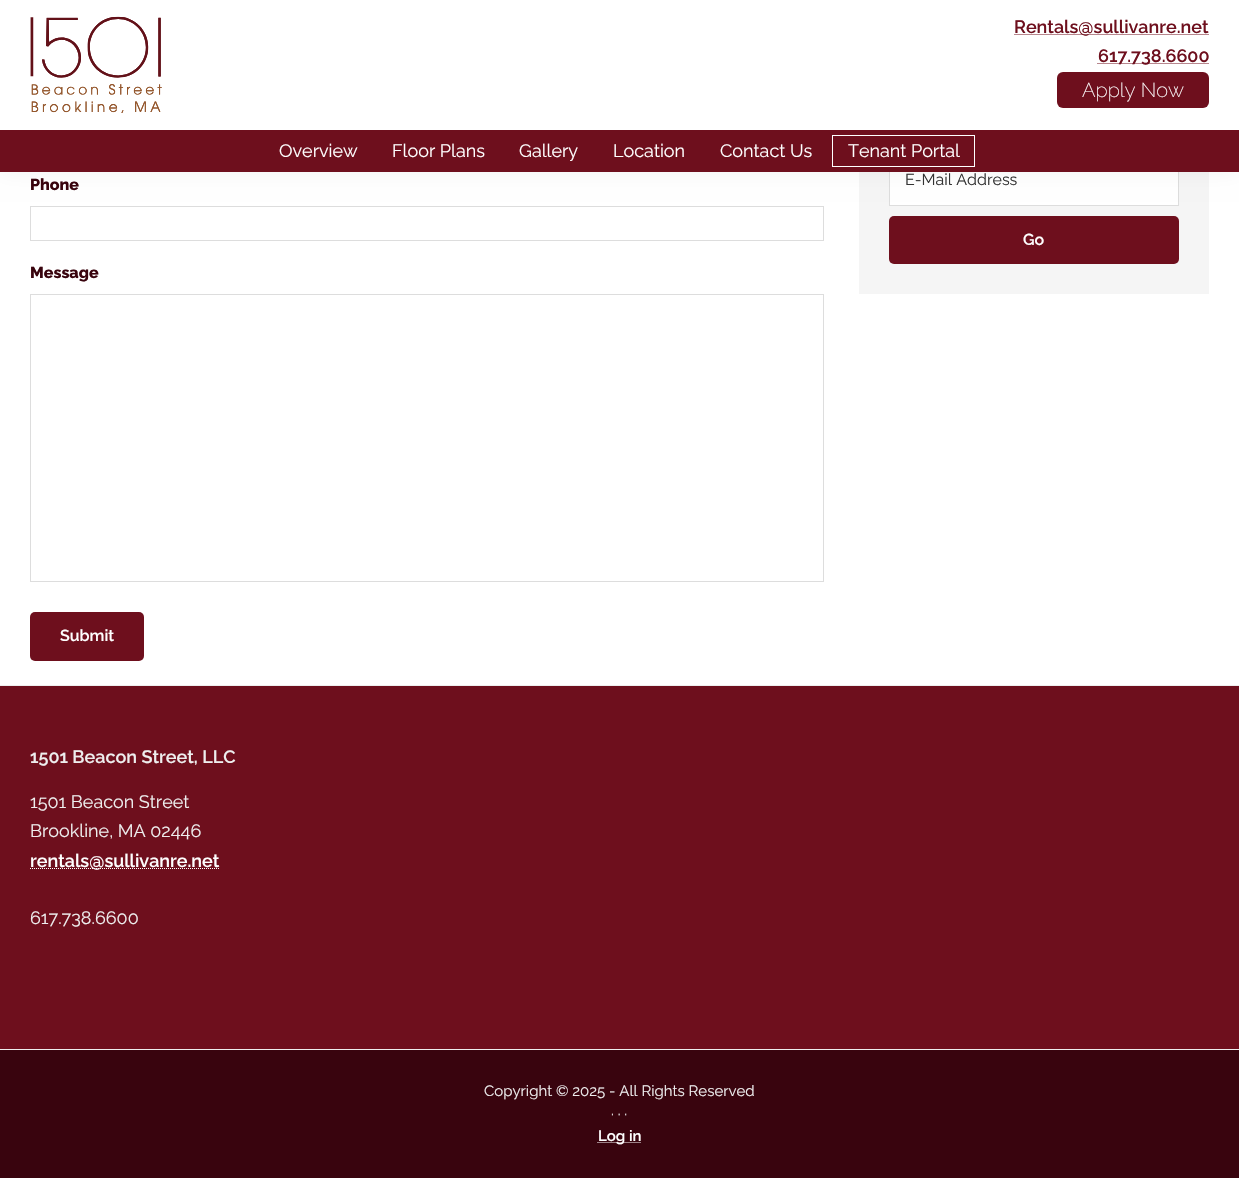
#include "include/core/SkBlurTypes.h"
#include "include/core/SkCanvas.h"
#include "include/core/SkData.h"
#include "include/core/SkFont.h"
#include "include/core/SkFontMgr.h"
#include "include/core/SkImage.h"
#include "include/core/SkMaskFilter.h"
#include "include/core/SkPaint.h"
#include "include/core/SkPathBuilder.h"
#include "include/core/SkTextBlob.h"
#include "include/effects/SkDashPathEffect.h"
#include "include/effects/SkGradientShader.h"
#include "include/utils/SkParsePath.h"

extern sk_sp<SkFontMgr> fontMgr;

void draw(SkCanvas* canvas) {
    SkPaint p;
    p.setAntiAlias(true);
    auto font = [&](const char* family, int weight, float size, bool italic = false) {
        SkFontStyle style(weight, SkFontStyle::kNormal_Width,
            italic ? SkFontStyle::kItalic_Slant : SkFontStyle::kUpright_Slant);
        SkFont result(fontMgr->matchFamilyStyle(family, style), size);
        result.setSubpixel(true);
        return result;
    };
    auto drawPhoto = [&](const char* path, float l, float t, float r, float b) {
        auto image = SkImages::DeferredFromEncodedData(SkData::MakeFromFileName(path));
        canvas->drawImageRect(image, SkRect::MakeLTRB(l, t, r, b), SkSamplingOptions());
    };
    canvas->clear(0xFFFFFFFF);
    p.setColor(0xFFF5F5F5);
    canvas->drawRect(SkRect::MakeLTRB(859, 172, 1209, 294), p);
    p.setColor(0xFFFFFFFF);
    canvas->drawRect(SkRect::MakeLTRB(890, 172, 1178, 205), p);
    p.setStyle(SkPaint::kStroke_Style);
    p.setStrokeWidth(1);
    p.setColor(0xFFDDDDDD);
    canvas->drawRect(SkRect::MakeLTRB(889.5f, 155.5f, 1178.5f, 205.5f), p);
    p.setStyle(SkPaint::kFill_Style);
    p.setColor(0x0D000000);
    p.setMaskFilter(SkMaskFilter::MakeBlur(kNormal_SkBlurStyle, 10));
    canvas->drawRect(SkRect::MakeLTRB(0, 0, 1239, 172), p);
    p.setMaskFilter(nullptr);
    p.setColor(0xFFFFFFFF);
    canvas->drawRect(SkRect::MakeLTRB(0, 0, 1239, 130), p);
    drawPhoto("media/1.png", 30, 16, 162, 113);
    p.setStyle(SkPaint::kStroke_Style);
    p.setColor(0xFF6E0F1D);
    p.setPathEffect(SkDashPathEffect::Make({{1, 1}}, 0));
    canvas->drawPath(SkPathBuilder().moveTo(1014.5f, 34.5f).lineTo(1209, 34.5f).detach(), p);
    p.setPathEffect(nullptr);
    auto font1 = font("Raleway", 600, 18);
    p.setStyle(SkPaint::kFill_Style);
    canvas->drawString("Rentals@sullivanre.net", 1014, 33, font1, p);
    p.setStyle(SkPaint::kStroke_Style);
    p.setPathEffect(SkDashPathEffect::Make({{1, 1}}, 0));
    canvas->drawPath(SkPathBuilder().moveTo(1097.5f, 63.5f).lineTo(1209, 63.5f).detach(), p);
    p.setPathEffect(nullptr);
    p.setStyle(SkPaint::kFill_Style);
    canvas->drawString("617.738.6600", 1098, 62, font1, p);
    canvas->drawRoundRect(SkRect::MakeLTRB(1057, 72, 1209, 108), 6, 6, p);
    auto font2 = font("Raleway", 200, 20);
    p.setColor(0xFFFFFFFF);
    canvas->drawString("Apply Now", 1082, 97, font2, p);
    p.setColor(0xFF6E0F1D);
    canvas->drawRect(SkRect::MakeLTRB(0, 130, 1239, 172), p);
    auto font3 = font("Raleway", 400, 18);
    p.setColor(0xFFFFFFFF);
    {
        const struct { const char* s; float x, y; } items[] = {
            {"Overview", 279, 157},
            {"Floor Plans", 392, 157},
            {"Gallery", 519, 157},
            {"Location", 613, 157},
            {"Contact Us", 720, 157},
        };
        for (auto [s, x, y] : items) {
            canvas->drawString(s, x, y, font3, p);
        }
    }
    p.setStyle(SkPaint::kStroke_Style);
    canvas->drawRect(SkRect::MakeLTRB(832.5f, 135.5f, 974.5f, 166.5f), p);
    p.setStyle(SkPaint::kFill_Style);
    canvas->drawString("Tenant Portal", 848, 157, font3, p);
    auto font4 = font("Raleway", 800, 16);
    p.setColor(0xFF39040E);
    canvas->drawString("Phone", 30, 190, font4, p);
    p.setStyle(SkPaint::kStroke_Style);
    p.setColor(0xFFDDDDDD);
    canvas->drawRect(SkRect::MakeLTRB(30.5f, 206.5f, 823.5f, 240.5f), p);
    p.setStyle(SkPaint::kFill_Style);
    p.setColor(0xFF39040E);
    canvas->drawString("Message", 30, 278, font4, p);
    p.setStyle(SkPaint::kStroke_Style);
    p.setColor(0xFFDDDDDD);
    canvas->drawRect(SkRect::MakeLTRB(30.5f, 294.5f, 823.5f, 581.5f), p);
    p.setStyle(SkPaint::kFill_Style);
    p.setColor(0xFF6E0F1D);
    canvas->drawRoundRect(SkRect::MakeLTRB(30, 612, 144, 661), 5, 5, p);
    auto font5 = font("Raleway", 600, 16);
    p.setColor(0xFFFFFFFF);
    canvas->drawString("Submit", 60, 641, font5, p);
    auto font6 = font("Raleway", 400, 16);
    p.setColor(0xFF333333);
    canvas->drawString("E-Mail Address", 905, 185, font6, p);
    p.setColor(0xFF6E0F1D);
    canvas->drawRoundRect(SkRect::MakeLTRB(889, 216, 1179, 264), 5, 5, p);
    p.setColor(0xFFFFFFFF);
    canvas->drawString("Go", 1023, 245, font5, p);
    p.setColor(0xFF6E0F1D);
    canvas->drawRect(SkRect::MakeLTRB(0, 686, 1239, 1049), p);
    p.setColor(0xFFEEEEEE);
    canvas->drawRect(SkRect::MakeLTRB(0, 685, 1239, 686), p);
    canvas->drawString("1501 Beacon Street, LLC", 30, 763, font1, p);
    canvas->drawString("1501 Beacon Street", 30, 808, font3, p);
    canvas->drawString("Brookline, MA 02446", 30, 837, font3, p);
    p.setStyle(SkPaint::kStroke_Style);
    p.setColor(0xFFFFFFFF);
    p.setPathEffect(SkDashPathEffect::Make({{1, 1}}, 0));
    canvas->drawPath(SkPathBuilder().moveTo(30, 868.5f).lineTo(219.5f, 868.5f).detach(), p);
    p.setPathEffect(nullptr);
    p.setStyle(SkPaint::kFill_Style);
    canvas->drawString("rentals@sullivanre.net", 30, 867, font1, p);
    p.setColor(0xFFEEEEEE);
    canvas->drawString("617.738.6600", 30, 924, font3, p);
    p.setColor(0xFF39040E);
    canvas->drawRect(SkRect::MakeLTRB(0, 1050, 1239, 1178), p);
    p.setColor(0xFFEEEEEE);
    canvas->drawRect(SkRect::MakeLTRB(0, 1049, 1239, 1050), p);
    auto font7 = font("Raleway", 400, 15);
    canvas->drawString("Copyright © 2025 - All Rights Reserved", 484, 1096, font7, p);
    canvas->drawString("· · ·", 611, 1119, font7, p);
    p.setStyle(SkPaint::kStroke_Style);
    p.setColor(0xFFFFFFFF);
    p.setPathEffect(SkDashPathEffect::Make({{1, 1}}, 0));
    canvas->drawPath(SkPathBuilder().moveTo(597.5f, 1142.5f).lineTo(641, 1142.5f).detach(), p);
    p.setPathEffect(nullptr);
    auto font8 = font("Raleway", 600, 15);
    p.setStyle(SkPaint::kFill_Style);
    canvas->drawString("Log in", 598, 1141, font8, p);
}
